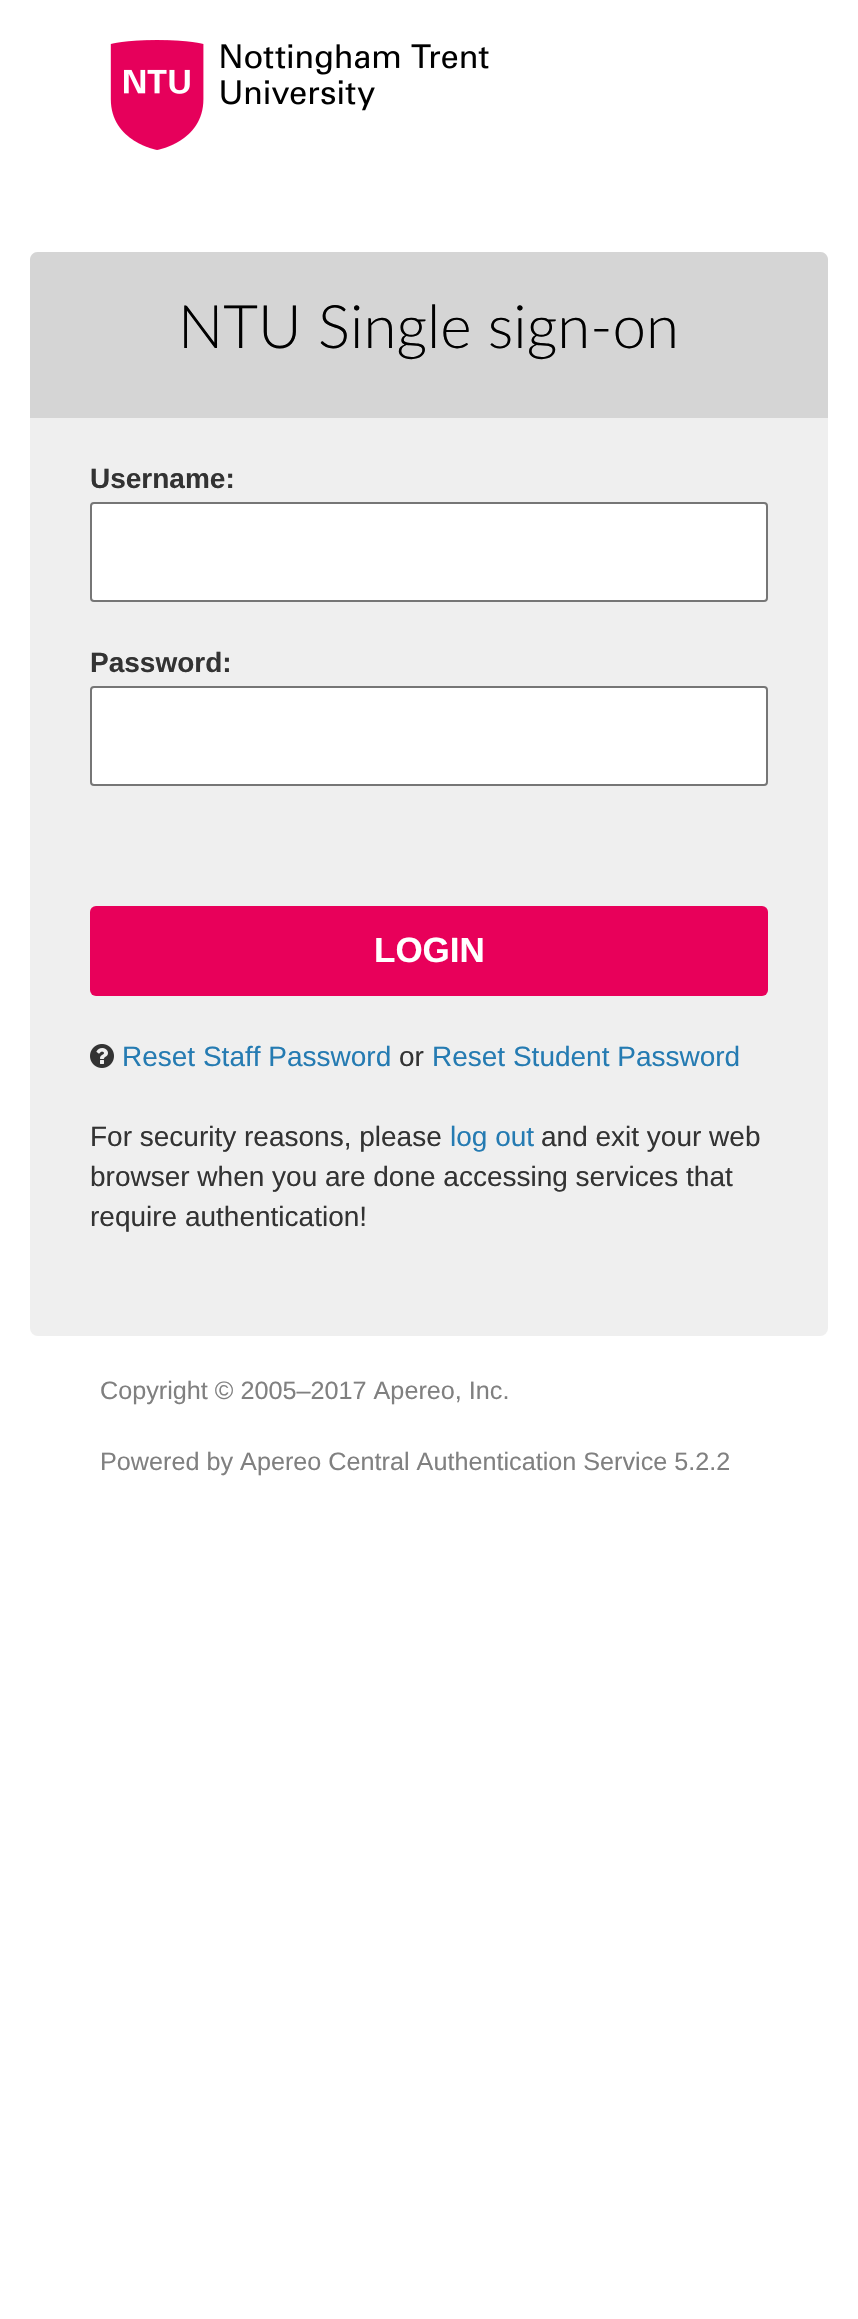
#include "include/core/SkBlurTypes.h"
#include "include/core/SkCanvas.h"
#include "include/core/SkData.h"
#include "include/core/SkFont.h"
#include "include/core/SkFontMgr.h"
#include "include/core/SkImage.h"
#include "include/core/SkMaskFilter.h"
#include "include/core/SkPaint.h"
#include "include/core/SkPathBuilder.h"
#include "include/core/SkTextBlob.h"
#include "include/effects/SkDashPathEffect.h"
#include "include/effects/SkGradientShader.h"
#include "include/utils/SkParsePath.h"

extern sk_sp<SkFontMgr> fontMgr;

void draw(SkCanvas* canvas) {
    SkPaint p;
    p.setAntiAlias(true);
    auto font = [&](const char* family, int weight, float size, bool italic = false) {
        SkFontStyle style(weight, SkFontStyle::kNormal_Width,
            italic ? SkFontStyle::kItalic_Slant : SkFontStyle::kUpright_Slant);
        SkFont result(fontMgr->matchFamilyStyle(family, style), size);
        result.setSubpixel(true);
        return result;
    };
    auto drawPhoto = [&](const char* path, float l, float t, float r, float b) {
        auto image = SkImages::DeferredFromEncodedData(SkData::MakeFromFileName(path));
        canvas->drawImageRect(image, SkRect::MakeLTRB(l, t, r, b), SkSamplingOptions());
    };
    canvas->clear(0xFFFFFFFF);
    drawPhoto("media/1.png", 110, 40, 489, 150);
    p.setColor(0xFFEFEFEF);
    canvas->drawRoundRect(SkRect::MakeLTRB(30, 252, 828, 1336), 8, 8, p);
    p.setColor(0xFFD5D5D5);
    canvas->drawPath(SkPathBuilder().moveTo(38, 252).lineTo(820, 252).cubicTo(824.5f, 252, 828, 255.5f, 828, 260).lineTo(828, 418).lineTo(30, 418).lineTo(30, 260).cubicTo(30, 255.5f, 33.5f, 252, 38, 252).close().detach(), p);
    auto font1 = font("Lato", 300, 60);
    p.setColor(0xFF000000);
    canvas->drawString("NTU Single sign-on", 178, 348, font1, p);
    auto font2 = font("Liberation Sans", 700, 28);
    p.setColor(0xFF333333);
    canvas->drawString("Username:", 90, 488, font2, p);
    p.setColor(0xFFFFFFFF);
    canvas->drawRoundRect(SkRect::MakeLTRB(91, 503, 767, 601), 3, 3, p);
    p.setStyle(SkPaint::kStroke_Style);
    p.setStrokeWidth(2);
    p.setColor(0xFF767676);
    canvas->drawRoundRect(SkRect::MakeLTRB(91, 503, 767, 601), 3, 3, p);
    p.setStyle(SkPaint::kFill_Style);
    p.setColor(0xFF333333);
    canvas->drawString("Password:", 90, 672, font2, p);
    p.setColor(0xFFFFFFFF);
    canvas->drawRoundRect(SkRect::MakeLTRB(91, 687, 767, 785), 3, 3, p);
    p.setStyle(SkPaint::kStroke_Style);
    p.setColor(0xFF767676);
    canvas->drawRoundRect(SkRect::MakeLTRB(91, 687, 767, 785), 3, 3, p);
    p.setStyle(SkPaint::kFill_Style);
    p.setColor(0xFFE8005A);
    canvas->drawRoundRect(SkRect::MakeLTRB(90, 906, 768, 996), 6, 6, p);
    auto font3 = font("Liberation Sans", 700, 35);
    p.setColor(0xFFFFFFFF);
    canvas->drawString("LOGIN", 374, 962, font3, p);
    drawPhoto("media/2.png", 90, 1044, 114, 1068);
    auto font4 = font("Liberation Sans", 400, 28);
    p.setColor(0xFF257BB2);
    canvas->drawString("Reset Staff Password", 122, 1066, font4, p);
    p.setColor(0xFF333333);
    canvas->drawString("or", 399, 1066, font4, p);
    p.setColor(0xFF257BB2);
    canvas->drawString("Reset Student Password", 432, 1066, font4, p);
    p.setColor(0xFF333333);
    canvas->drawString("For security reasons, please", 90, 1146, font4, p);
    p.setColor(0xFF257BB2);
    canvas->drawString("log out", 450, 1146, font4, p);
    p.setColor(0xFF333333);
    {
        const struct { const char* s; float x, y; } items[] = {
            {"and exit your web", 541, 1146},
            {"browser when you are done accessing services that", 90, 1186},
            {"require authentication!", 90, 1226},
        };
        for (auto [s, x, y] : items) {
            canvas->drawString(s, x, y, font4, p);
        }
    }
    auto font5 = font("Liberation Sans", 400, 25.2f);
    p.setColor(0xFF808080);
    canvas->drawString("Copyright © 2005–2017 Apereo, Inc.", 100, 1399, font5, p);
    canvas->drawString("Powered by Apereo Central Authentication Service 5.2.2", 100, 1470, font5, p);
}
